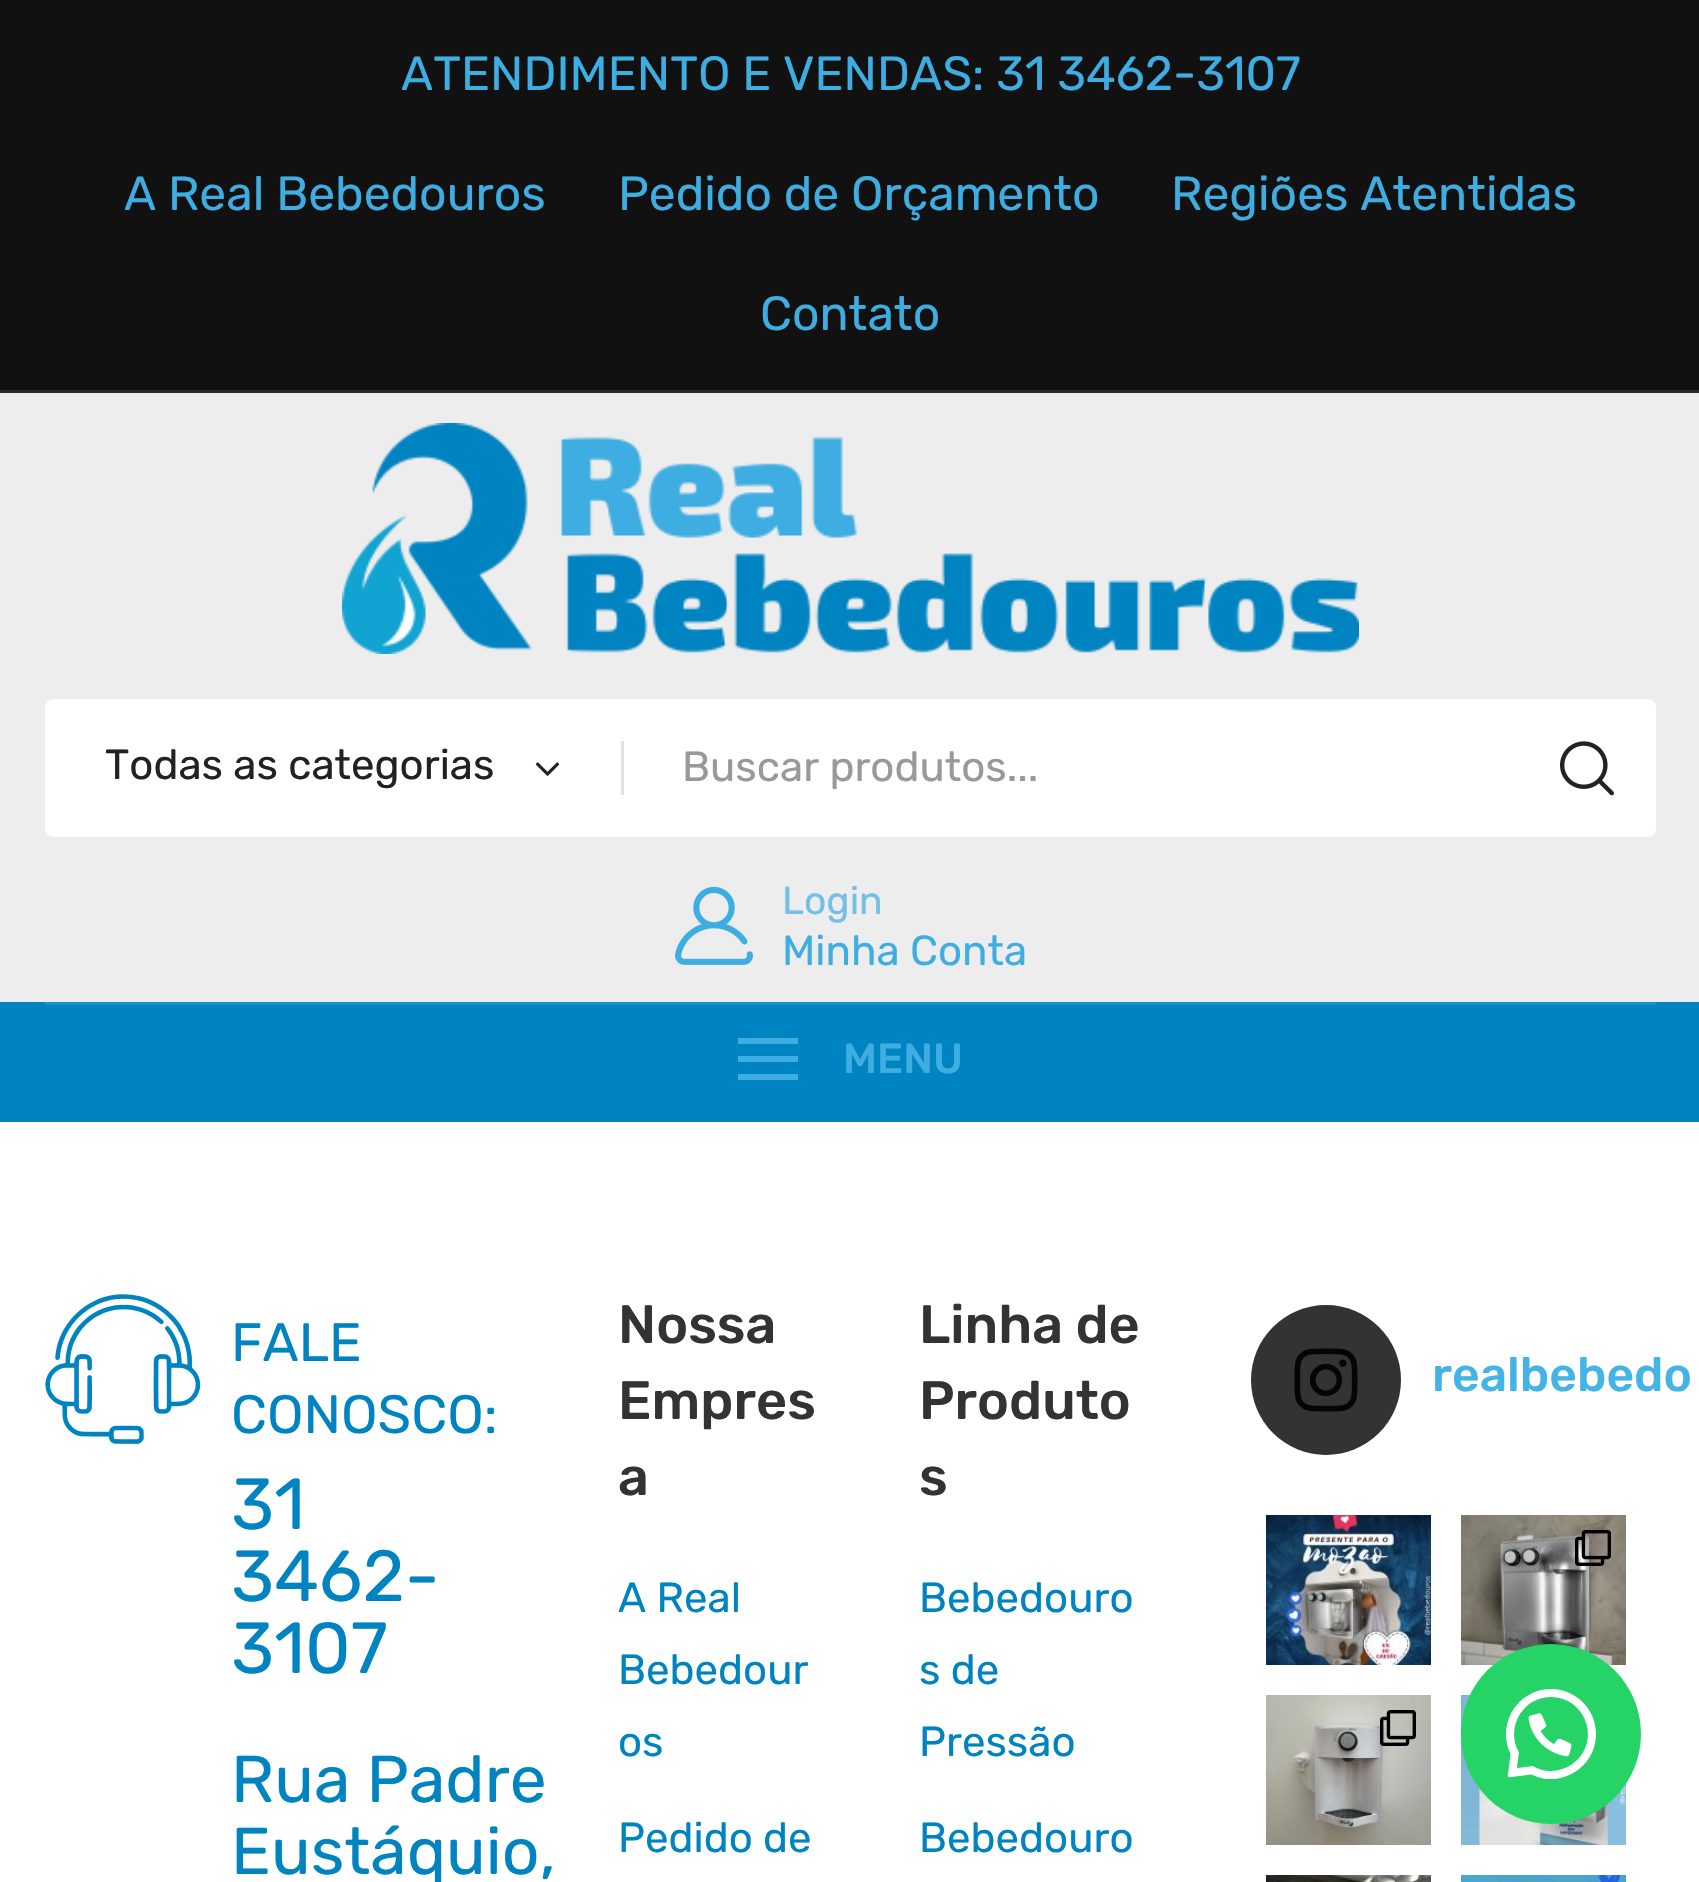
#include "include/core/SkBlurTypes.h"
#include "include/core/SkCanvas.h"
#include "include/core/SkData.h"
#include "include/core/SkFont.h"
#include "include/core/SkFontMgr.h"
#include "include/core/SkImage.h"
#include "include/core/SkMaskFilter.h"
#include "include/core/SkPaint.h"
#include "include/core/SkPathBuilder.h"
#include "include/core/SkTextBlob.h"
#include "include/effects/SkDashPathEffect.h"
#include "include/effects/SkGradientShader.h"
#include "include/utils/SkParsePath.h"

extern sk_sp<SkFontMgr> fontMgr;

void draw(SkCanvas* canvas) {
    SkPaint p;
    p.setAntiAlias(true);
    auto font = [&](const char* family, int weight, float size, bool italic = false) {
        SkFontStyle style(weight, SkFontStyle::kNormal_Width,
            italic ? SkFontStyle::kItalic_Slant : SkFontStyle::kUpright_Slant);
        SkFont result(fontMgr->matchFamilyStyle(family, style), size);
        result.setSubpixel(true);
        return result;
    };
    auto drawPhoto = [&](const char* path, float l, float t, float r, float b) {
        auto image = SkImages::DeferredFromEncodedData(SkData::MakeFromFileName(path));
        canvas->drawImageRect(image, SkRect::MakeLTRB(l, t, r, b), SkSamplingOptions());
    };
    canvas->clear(0xFFFFFFFF);
    {
        const struct { float l, t, r, b; SkColor color; } items[] = {
            {0, 393, 1699, 1002, 0xFFEDEDED},
            {0, 0, 1699, 390, 0xFF111111},
            {0, 390, 1699, 393, 0xFF292929},
        };
        for (auto [l, t, r, b, color] : items) {
            p.setColor(color);
            canvas->drawRect(SkRect::MakeLTRB(l, t, r, b), p);
        }
    }
    auto font1 = font("Rubik", 400, 48);
    p.setColor(0xFF3DADE2);
    {
        const struct { const char* s; float x, y; } items[] = {
            {"ATENDIMENTO E VENDAS: 31 3462-3107", 401, 90},
            {"A Real Bebedouros", 124, 210},
            {"Pedido de Orçamento", 618, 210},
            {"Regiões Atentidas", 1171, 210},
            {"Contato", 760, 330},
        };
        for (auto [s, x, y] : items) {
            canvas->drawString(s, x, y, font1, p);
        }
    }
    drawPhoto("media/1.png", 342, 423, 1359, 654);
    p.setColor(0xFFFFFFFF);
    canvas->drawRoundRect(SkRect::MakeLTRB(45, 699, 1656, 837), 9, 9, p);
    auto font2 = font("Rubik", 400, 42);
    p.setColor(0xFF222222);
    canvas->drawString("Todas as categorias", 105, 779, font2, p);
    drawPhoto("media/2.png", 535, 762, 560, 776);
    p.setColor(0xFFE0E0E0);
    canvas->drawRect(SkRect::MakeLTRB(621, 741, 624, 795), p);
    p.setColor(0xFF999999);
    canvas->drawString("Buscar produtos...", 682, 781, font2, p);
    p.setColor(0xFFFFFFFF);
    canvas->drawPath(SkPathBuilder().moveTo(1518, 699).lineTo(1647, 699).cubicTo(1652, 699, 1656, 703, 1656, 708).lineTo(1656, 828).cubicTo(1656, 833, 1652, 837, 1647, 837).lineTo(1518, 837).close().detach(), p);
    drawPhoto("media/3.png", 1560, 741, 1614, 796);
    drawPhoto("media/4.png", 675, 886, 753, 965);
    auto font3 = font("Rubik", 400, 39);
    p.setColor(0xFF72C0E5);
    canvas->drawString("Login", 782, 914, font3, p);
    p.setColor(0xFF3DADE2);
    canvas->drawString("Minha Conta", 782, 965, font2, p);
    {
        const struct { float l, t, r, b; SkColor color; } items[] = {
            {0, 1002, 1699, 1122, 0xFF0084C1},
            {45, 1002, 1656, 1005, 0xFF1A90C7},
            {738, 1038, 798, 1044, 0xFF3DADE2},
            {738, 1056, 798, 1062, 0xFF3DADE2},
            {738, 1074, 798, 1080, 0xFF3DADE2},
        };
        for (auto [l, t, r, b, color] : items) {
            p.setColor(color);
            canvas->drawRect(SkRect::MakeLTRB(l, t, r, b), p);
        }
    }
    auto font4 = font("Rubik", 500, 42);
    canvas->drawString("MENU", 843, 1073, font4, p);
    drawPhoto("media/5.png", 45, 1294, 201, 1444);
    auto font5 = font("Rubik", 400, 54);
    p.setColor(0xFF0084C1);
    canvas->drawString("FALE", 231, 1361, font5, p);
    canvas->drawString("CONOSCO:", 231, 1433, font5, p);
    auto font6 = font("Rubik", 400, 72);
    {
        const struct { const char* s; float x, y; } items[] = {
            {"31", 231, 1529},
            {"3462-", 231, 1601},
            {"3107", 231, 1673},
        };
        for (auto [s, x, y] : items) {
            canvas->drawString(s, x, y, font6, p);
        }
    }
    auto font7 = font("Rubik", 400, 66);
    canvas->drawString("Rua Padre", 231, 1802, font7, p);
    canvas->drawString("Eustáquio,", 231, 1874, font7, p);
    auto font8 = font("Rubik", 500, 54);
    p.setColor(0xFF333333);
    {
        const struct { const char* s; float x, y; } items[] = {
            {"Nossa", 618, 1343},
            {"Empres", 618, 1419},
            {"a", 618, 1495},
        };
        for (auto [s, x, y] : items) {
            canvas->drawString(s, x, y, font8, p);
        }
    }
    p.setColor(0xFF0084C1);
    {
        const struct { const char* s; float x, y; } items[] = {
            {"A Real", 618, 1612},
            {"Bebedour", 618, 1684},
            {"os", 618, 1756},
            {"Pedido de", 618, 1852},
        };
        for (auto [s, x, y] : items) {
            canvas->drawString(s, x, y, font2, p);
        }
    }
    p.setColor(0xFF333333);
    {
        const struct { const char* s; float x, y; } items[] = {
            {"Linha de", 919, 1343},
            {"Produto", 919, 1419},
            {"s", 919, 1495},
        };
        for (auto [s, x, y] : items) {
            canvas->drawString(s, x, y, font8, p);
        }
    }
    p.setColor(0xFF0084C1);
    {
        const struct { const char* s; float x, y; } items[] = {
            {"Bebedouro", 919, 1612},
            {"s de", 919, 1684},
            {"Pressão", 919, 1756},
            {"Bebedouro", 919, 1852},
        };
        for (auto [s, x, y] : items) {
            canvas->drawString(s, x, y, font2, p);
        }
    }
    p.setColor(0xFF333333);
    canvas->drawCircle(1326, 1380, 75, p);
    drawPhoto("media/6.png", 1294, 1348, 1358, 1412);
    auto font9 = font("Rubik", 500, 48);
    p.setColor(0xFF44B4E7);
    canvas->drawString("realbebedo", 1432, 1391, font9, p);
    drawPhoto("media/7.png", 1266, 1515, 1431, 1665);
    drawPhoto("media/8.png", 1461, 1515, 1626, 1665);
    drawPhoto("media/9.png", 1575, 1530, 1611, 1566);
    drawPhoto("media/10.png", 1266, 1695, 1431, 1845);
    drawPhoto("media/11.png", 1380, 1710, 1416, 1746);
    drawPhoto("media/12.png", 1461, 1695, 1626, 1845);
    drawPhoto("media/13.png", 1266, 1875, 1431, 1882);
    drawPhoto("media/14.png", 1461, 1875, 1626, 1882);
    p.setColor(0xFF25D366);
    canvas->drawCircle(1551, 1734, 90, p);
    drawPhoto("media/15.png", 1506, 1689, 1596, 1779);
}
